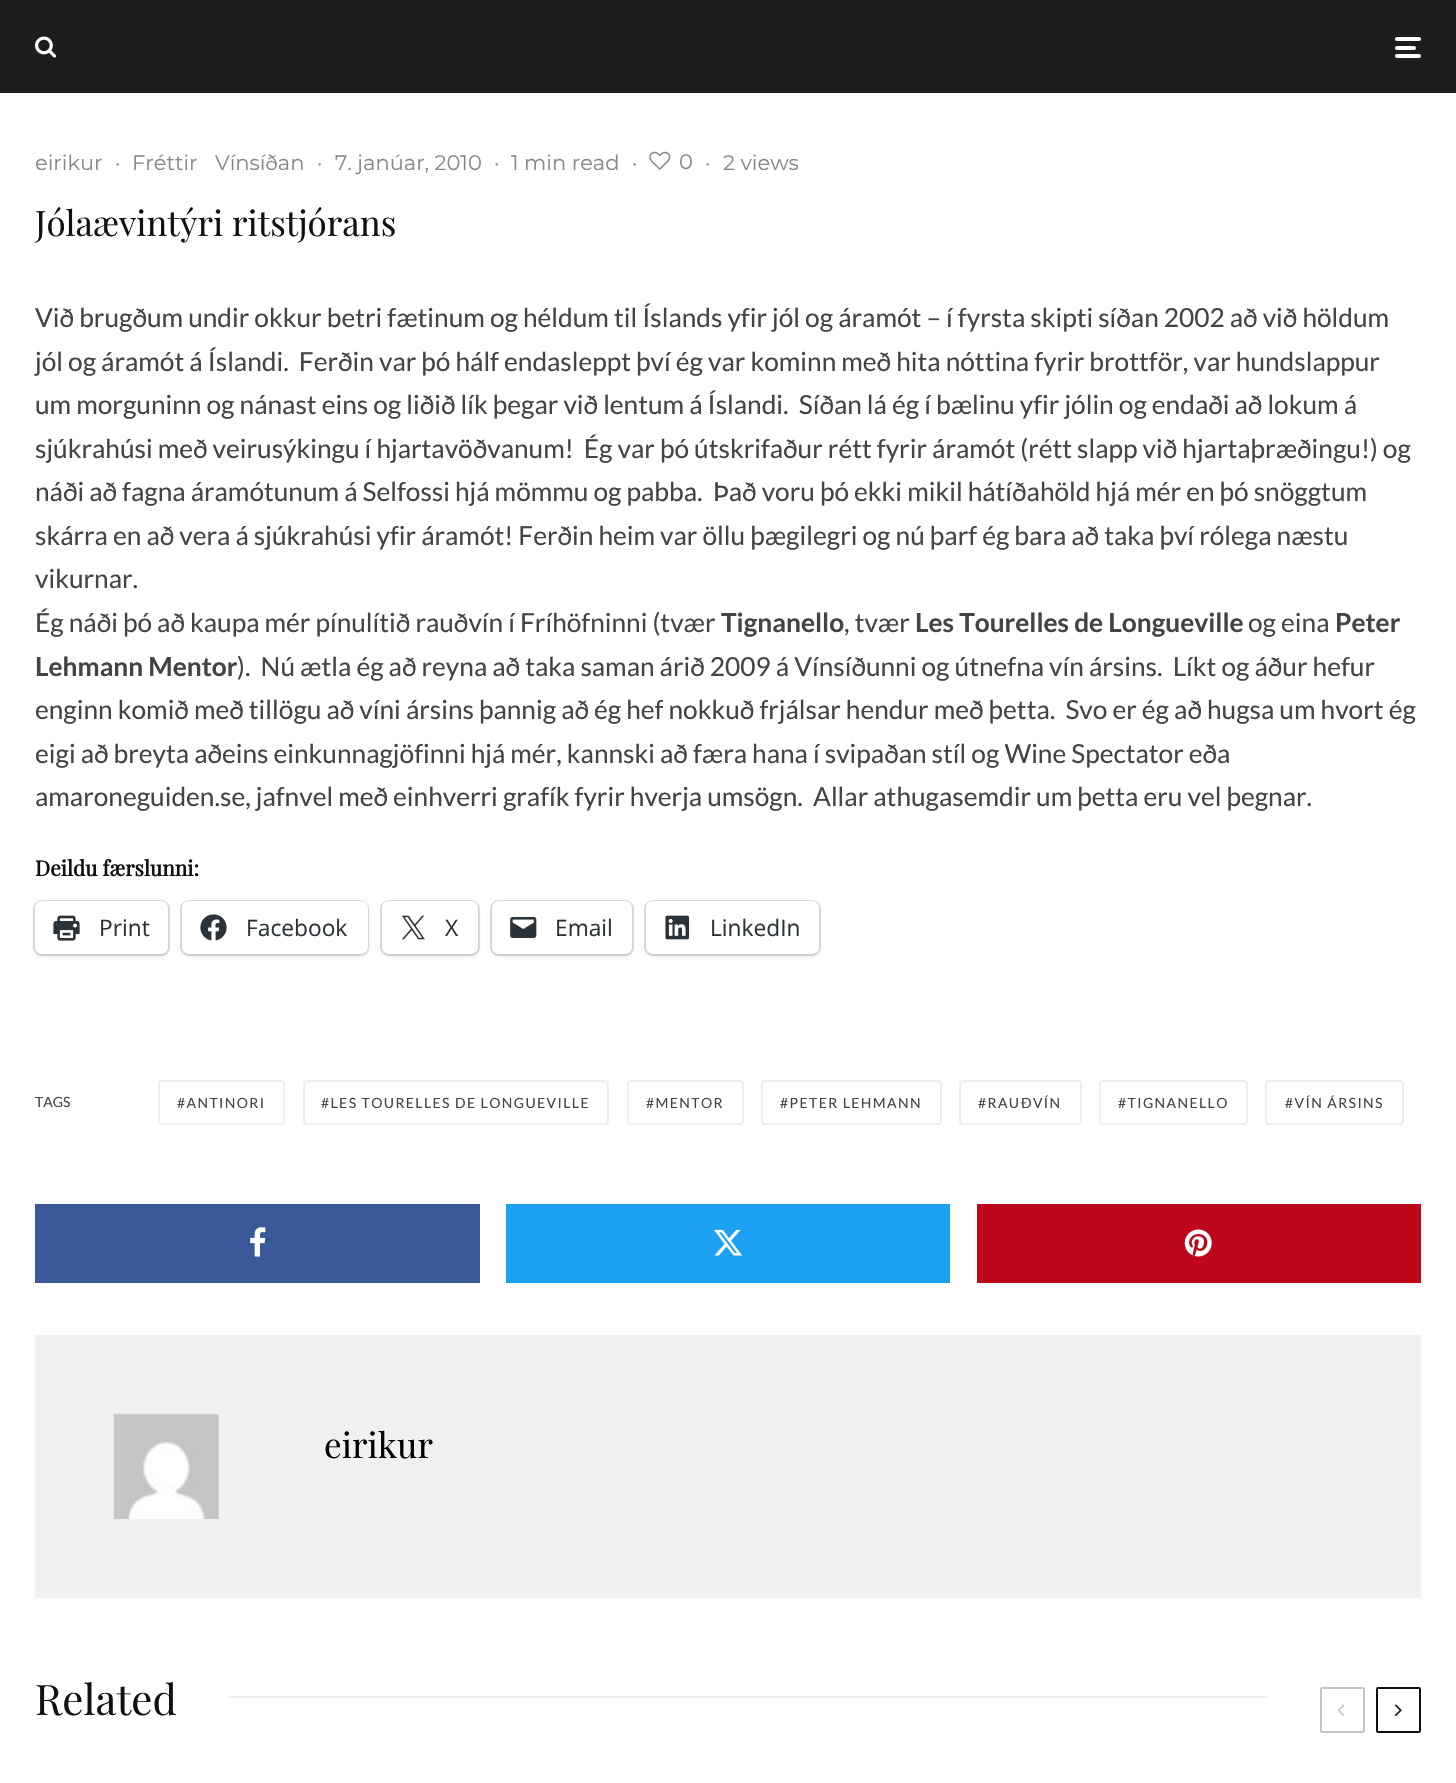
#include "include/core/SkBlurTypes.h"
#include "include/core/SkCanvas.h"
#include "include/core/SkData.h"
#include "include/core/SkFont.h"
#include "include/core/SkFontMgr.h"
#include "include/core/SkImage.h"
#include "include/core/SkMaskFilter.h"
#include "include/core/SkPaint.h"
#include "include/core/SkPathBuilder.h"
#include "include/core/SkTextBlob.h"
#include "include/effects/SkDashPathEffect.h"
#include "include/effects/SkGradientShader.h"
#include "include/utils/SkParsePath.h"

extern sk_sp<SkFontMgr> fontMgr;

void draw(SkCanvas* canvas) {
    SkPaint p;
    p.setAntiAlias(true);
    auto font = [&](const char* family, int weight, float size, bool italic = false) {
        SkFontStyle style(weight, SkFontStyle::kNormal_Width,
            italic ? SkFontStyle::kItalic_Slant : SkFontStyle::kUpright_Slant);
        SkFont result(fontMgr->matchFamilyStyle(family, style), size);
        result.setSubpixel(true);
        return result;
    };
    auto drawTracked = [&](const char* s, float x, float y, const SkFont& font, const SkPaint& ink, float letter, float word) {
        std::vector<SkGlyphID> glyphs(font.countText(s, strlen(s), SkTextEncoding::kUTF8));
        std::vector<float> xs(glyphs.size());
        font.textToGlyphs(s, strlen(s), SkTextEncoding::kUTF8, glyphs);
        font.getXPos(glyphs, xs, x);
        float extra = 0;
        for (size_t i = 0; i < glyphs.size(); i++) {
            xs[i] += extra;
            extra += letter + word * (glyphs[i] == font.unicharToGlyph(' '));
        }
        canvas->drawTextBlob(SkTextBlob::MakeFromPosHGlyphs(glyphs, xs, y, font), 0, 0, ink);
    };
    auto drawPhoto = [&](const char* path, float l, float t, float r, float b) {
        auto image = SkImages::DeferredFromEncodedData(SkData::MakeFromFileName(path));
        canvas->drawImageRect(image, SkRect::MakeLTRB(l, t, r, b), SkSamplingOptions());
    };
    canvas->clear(0xFFFFFFFF);
    p.setColor(0xFF1C1D1E);
    canvas->drawRect(SkRect::MakeLTRB(0, 0, 1456, 93), p);
    drawPhoto("media/1.png", 35, 36, 57, 58);
    p.setColor(0xFFFFFFFF);
    canvas->drawRoundRect(SkRect::MakeLTRB(1395, 46, 1416, 50), 2, 2, p);
    canvas->drawRoundRect(SkRect::MakeLTRB(1395, 37, 1421, 41), 2, 2, p);
    canvas->drawRoundRect(SkRect::MakeLTRB(1395, 54, 1421, 58), 2, 2, p);
    auto font1 = font("Montserrat", 400, 21);
    p.setColor(0xFF888888);
    {
        const struct { const char* s; float x, y; } items[] = {
            {"eirikur", 35, 170},
            {"·", 115, 170},
            {"Fréttir", 132, 170},
            {"Vínsíðan", 215, 170},
            {"·", 317, 170},
            {"7. janúar, 2010", 335, 170},
            {"·", 494, 170},
            {"1 min read", 511, 170},
            {"·", 632, 170},
        };
        for (auto [s, x, y] : items) {
            canvas->drawString(s, x, y, font1, p);
        }
    }
    drawPhoto("media/2.png", 649, 151, 671, 170);
    {
        const struct { const char* s; float x, y; } items[] = {
            {"0", 679, 169},
            {"·", 705, 170},
            {"2 views", 723, 170},
        };
        for (auto [s, x, y] : items) {
            canvas->drawString(s, x, y, font1, p);
        }
    }
    auto font2 = font("Playfair Display", 400, 35);
    p.setColor(0xFF111111);
    canvas->drawString("Jólaævintýri ritstjórans", 35, 236, font2, p);
    auto font3 = font("Lato", 400, 26.25f);
    p.setColor(0xFF444444);
    {
        const struct { const char* s; float x, y; } items[] = {
            {"Við brugðum undir okkur betri fætinum og héldum til Íslands yfir jól og áramót – í fyrsta skipti síðan 2002 að við höldum", 35, 327},
            {"jól og áramót á Íslandi.  Ferðin var þó hálf endasleppt því ég var kominn með hita nóttina fyrir brottför, var hundslappur", 35, 371},
            {"um morguninn og nánast eins og liðið lík þegar við lentum á Íslandi.  Síðan lá ég í bælinu yfir jólin og endaði að lokum á", 35, 414},
            {"sjúkrahúsi með veirusýkingu í hjartavöðvanum!  Ég var þó útskrifaður rétt fyrir áramót (rétt slapp við hjartaþræðingu!) og", 35, 458},
            {"náði að fagna áramótunum á Selfossi hjá mömmu og pabba.  Það voru þó ekki mikil hátíðahöld hjá mér en þó snöggtum", 35, 501},
            {"skárra en að vera á sjúkrahúsi yfir áramót! Ferðin heim var öllu þægilegri og nú þarf ég bara að taka því rólega næstu", 35, 545},
            {"vikurnar.", 35, 588},
            {"Ég náði þó að kaupa mér pínulítið rauðvín í Fríhöfninni (tvær", 35, 632},
        };
        for (auto [s, x, y] : items) {
            canvas->drawString(s, x, y, font3, p);
        }
    }
    auto font4 = font("Lato", 700, 26.25f);
    canvas->drawString("Tignanello", 721, 632, font4, p);
    canvas->drawString(", tvær", 844, 632, font3, p);
    canvas->drawString("Les Tourelles de Longueville", 915, 632, font4, p);
    canvas->drawString("og eina", 1248, 632, font3, p);
    canvas->drawString("Peter", 1335, 632, font4, p);
    canvas->drawString("Lehmann Mentor", 35, 676, font4, p);
    {
        const struct { const char* s; float x, y; } items[] = {
            {").  Nú ætla ég að reyna að taka saman árið 2009 á Vínsíðunni og útnefna vín ársins.  Líkt og áður hefur", 237, 676},
            {"enginn komið með tillögu að víni ársins þannig að ég hef nokkuð frjálsar hendur með þetta.  Svo er ég að hugsa um hvort ég", 35, 719},
            {"eigi að breyta aðeins einkunnagjöfinni hjá mér, kannski að færa hana í svipaðan stíl og Wine Spectator eða", 35, 763},
            {"amaroneguiden.se, jafnvel með einhverri grafík fyrir hverja umsögn.  Allar athugasemdir um þetta eru vel þegnar.", 35, 806},
        };
        for (auto [s, x, y] : items) {
            canvas->drawString(s, x, y, font3, p);
        }
    }
    auto font5 = font("Playfair Display", 700, 21);
    p.setColor(0xFF111111);
    canvas->drawString("Deildu færslunni:", 35, 876, font5, p);
    p.setStyle(SkPaint::kStroke_Style);
    p.setStrokeWidth(2);
    p.setColor(0xFFE0E0E0);
    canvas->drawRoundRect(SkRect::MakeLTRB(34, 901, 169, 955), 8, 8, p);
    p.setStyle(SkPaint::kFill_Style);
    p.setColor(0x1F000000);
    p.setMaskFilter(SkMaskFilter::MakeBlur(kNormal_SkBlurStyle, 2));
    canvas->drawRoundRect(SkRect::MakeLTRB(35, 903, 168, 956), 7, 7, p);
    p.setMaskFilter(nullptr);
    p.setColor(0xFFFFFFFF);
    canvas->drawRoundRect(SkRect::MakeLTRB(35, 901, 168, 954), 7, 7, p);
    drawPhoto("media/3.png", 53, 915, 80, 941);
    auto font6 = font("Open Sans", 400, 22.75f);
    p.setColor(0xFF2C3338);
    canvas->drawString("Print", 99, 936, font6, p);
    p.setStyle(SkPaint::kStroke_Style);
    p.setColor(0xFFE0E0E0);
    canvas->drawRoundRect(SkRect::MakeLTRB(181, 901, 368, 955), 8, 8, p);
    p.setStyle(SkPaint::kFill_Style);
    p.setColor(0x1F000000);
    p.setMaskFilter(SkMaskFilter::MakeBlur(kNormal_SkBlurStyle, 2));
    canvas->drawRoundRect(SkRect::MakeLTRB(182, 903, 368, 956), 7, 7, p);
    p.setMaskFilter(nullptr);
    p.setColor(0xFFFFFFFF);
    canvas->drawRoundRect(SkRect::MakeLTRB(182, 901, 368, 954), 7, 7, p);
    drawPhoto("media/4.png", 200, 914, 227, 941);
    p.setColor(0xFF2C3338);
    canvas->drawString("Facebook", 246, 936, font6, p);
    p.setStyle(SkPaint::kStroke_Style);
    p.setColor(0xFFE0E0E0);
    canvas->drawRoundRect(SkRect::MakeLTRB(381, 901, 479, 955), 8, 8, p);
    p.setStyle(SkPaint::kFill_Style);
    p.setColor(0x1F000000);
    p.setMaskFilter(SkMaskFilter::MakeBlur(kNormal_SkBlurStyle, 2));
    canvas->drawRoundRect(SkRect::MakeLTRB(382, 903, 478, 956), 7, 7, p);
    p.setMaskFilter(nullptr);
    p.setColor(0xFFFFFFFF);
    canvas->drawRoundRect(SkRect::MakeLTRB(382, 901, 478, 954), 7, 7, p);
    drawPhoto("media/5.png", 402, 915, 425, 940);
    p.setColor(0xFF2C3338);
    canvas->drawString("X", 445, 936, font6, p);
    p.setStyle(SkPaint::kStroke_Style);
    p.setColor(0xFFE0E0E0);
    canvas->drawRoundRect(SkRect::MakeLTRB(491, 901, 633, 955), 8, 8, p);
    p.setStyle(SkPaint::kFill_Style);
    p.setColor(0x1F000000);
    p.setMaskFilter(SkMaskFilter::MakeBlur(kNormal_SkBlurStyle, 2));
    canvas->drawRoundRect(SkRect::MakeLTRB(492, 903, 632, 956), 7, 7, p);
    p.setMaskFilter(nullptr);
    p.setColor(0xFFFFFFFF);
    canvas->drawRoundRect(SkRect::MakeLTRB(492, 901, 632, 954), 7, 7, p);
    drawPhoto("media/6.png", 510, 917, 537, 938);
    p.setColor(0xFF2C3338);
    canvas->drawString("Email", 555, 936, font6, p);
    p.setStyle(SkPaint::kStroke_Style);
    p.setColor(0xFFE0E0E0);
    canvas->drawRoundRect(SkRect::MakeLTRB(645, 901, 820, 955), 8, 8, p);
    p.setStyle(SkPaint::kFill_Style);
    p.setColor(0x1F000000);
    p.setMaskFilter(SkMaskFilter::MakeBlur(kNormal_SkBlurStyle, 2));
    canvas->drawRoundRect(SkRect::MakeLTRB(646, 903, 819, 956), 7, 7, p);
    p.setMaskFilter(nullptr);
    p.setColor(0xFFFFFFFF);
    canvas->drawRoundRect(SkRect::MakeLTRB(646, 901, 819, 954), 7, 7, p);
    drawPhoto("media/7.png", 665, 915, 690, 940);
    p.setColor(0xFF2C3338);
    canvas->drawString("LinkedIn", 710, 936, font6, p);
    auto font7 = font("Lato", 400, 14);
    p.setColor(0xFF444444);
    canvas->drawString("TAGS", 35, 1107, font7, p);
    p.setStyle(SkPaint::kStroke_Style);
    p.setColor(0xFFEEEEEE);
    canvas->drawRoundRect(SkRect::MakeLTRB(159, 1081, 284, 1124), 3, 3, p);
    p.setStyle(SkPaint::kFill_Style);
    p.setColor(0xFF444444);
    drawTracked("#ANTINORI", 177, 1108, font7, p, 1.4f, 0);
    p.setStyle(SkPaint::kStroke_Style);
    p.setColor(0xFFEEEEEE);
    canvas->drawRoundRect(SkRect::MakeLTRB(304, 1081, 608, 1124), 3, 3, p);
    p.setStyle(SkPaint::kFill_Style);
    p.setColor(0xFF444444);
    drawTracked("#LES TOURELLES DE LONGUEVILLE", 321, 1108, font7, p, 1.4f, 0);
    p.setStyle(SkPaint::kStroke_Style);
    p.setColor(0xFFEEEEEE);
    canvas->drawRoundRect(SkRect::MakeLTRB(628, 1081, 743, 1124), 3, 3, p);
    p.setStyle(SkPaint::kFill_Style);
    p.setColor(0xFF444444);
    drawTracked("#MENTOR", 646, 1108, font7, p, 1.4f, 0);
    p.setStyle(SkPaint::kStroke_Style);
    p.setColor(0xFFEEEEEE);
    canvas->drawRoundRect(SkRect::MakeLTRB(762, 1081, 941, 1124), 3, 3, p);
    p.setStyle(SkPaint::kFill_Style);
    p.setColor(0xFF444444);
    drawTracked("#PETER LEHMANN", 780, 1108, font7, p, 1.4f, 0);
    p.setStyle(SkPaint::kStroke_Style);
    p.setColor(0xFFEEEEEE);
    canvas->drawRoundRect(SkRect::MakeLTRB(960, 1081, 1081, 1124), 3, 3, p);
    p.setStyle(SkPaint::kFill_Style);
    p.setColor(0xFF444444);
    drawTracked("#RAUÐVÍN", 978, 1108, font7, p, 1.4f, 0);
    p.setStyle(SkPaint::kStroke_Style);
    p.setColor(0xFFEEEEEE);
    canvas->drawRoundRect(SkRect::MakeLTRB(1100, 1081, 1247, 1124), 3, 3, p);
    p.setStyle(SkPaint::kFill_Style);
    p.setColor(0xFF444444);
    drawTracked("#TIGNANELLO", 1118, 1108, font7, p, 1.4f, 0);
    p.setStyle(SkPaint::kStroke_Style);
    p.setColor(0xFFEEEEEE);
    canvas->drawRoundRect(SkRect::MakeLTRB(1266, 1081, 1403, 1124), 3, 3, p);
    p.setStyle(SkPaint::kFill_Style);
    p.setColor(0xFF444444);
    drawTracked("#VÍN ÁRSINS", 1285, 1108, font7, p, 1.4f, 0);
    p.setColor(0xFF3B5998);
    canvas->drawRect(SkRect::MakeLTRB(35, 1204, 480, 1283), p);
    drawPhoto("media/8.png", 250, 1227, 266, 1257);
    p.setColor(0xFF1DA1F2);
    canvas->drawRect(SkRect::MakeLTRB(506, 1204, 950, 1283), p);
    drawPhoto("media/9.png", 714, 1229, 743, 1256);
    p.setColor(0xFFBD081C);
    canvas->drawRect(SkRect::MakeLTRB(977, 1204, 1421, 1283), p);
    drawPhoto("media/10.png", 1184, 1229, 1212, 1257);
    p.setColor(0xFFF1F1F1);
    canvas->drawRect(SkRect::MakeLTRB(35, 1335, 1421, 1598), p);
    drawPhoto("media/11.png", 113, 1413, 219, 1519);
    p.setColor(0xFF000000);
    canvas->drawString("eirikur", 324, 1458, font2, p);
    auto font8 = font("Playfair Display", 400, 42);
    p.setColor(0xFF111111);
    canvas->drawString("Related", 35, 1715, font8, p);
    p.setColor(0xFFEEEEEE);
    canvas->drawRect(SkRect::MakeLTRB(229, 1696, 1267, 1698), p);
    p.setStyle(SkPaint::kStroke_Style);
    p.setColor(0xFFC4C4C4);
    canvas->drawRoundRect(SkRect::MakeLTRB(1321, 1688, 1364, 1732), 1, 1, p);
    drawPhoto("media/12.png", 1337, 1704, 1345, 1716);
    p.setColor(0xFF111111);
    canvas->drawRoundRect(SkRect::MakeLTRB(1377, 1688, 1420, 1732), 1, 1, p);
    drawPhoto("media/13.png", 1394, 1704, 1402, 1717);
}
